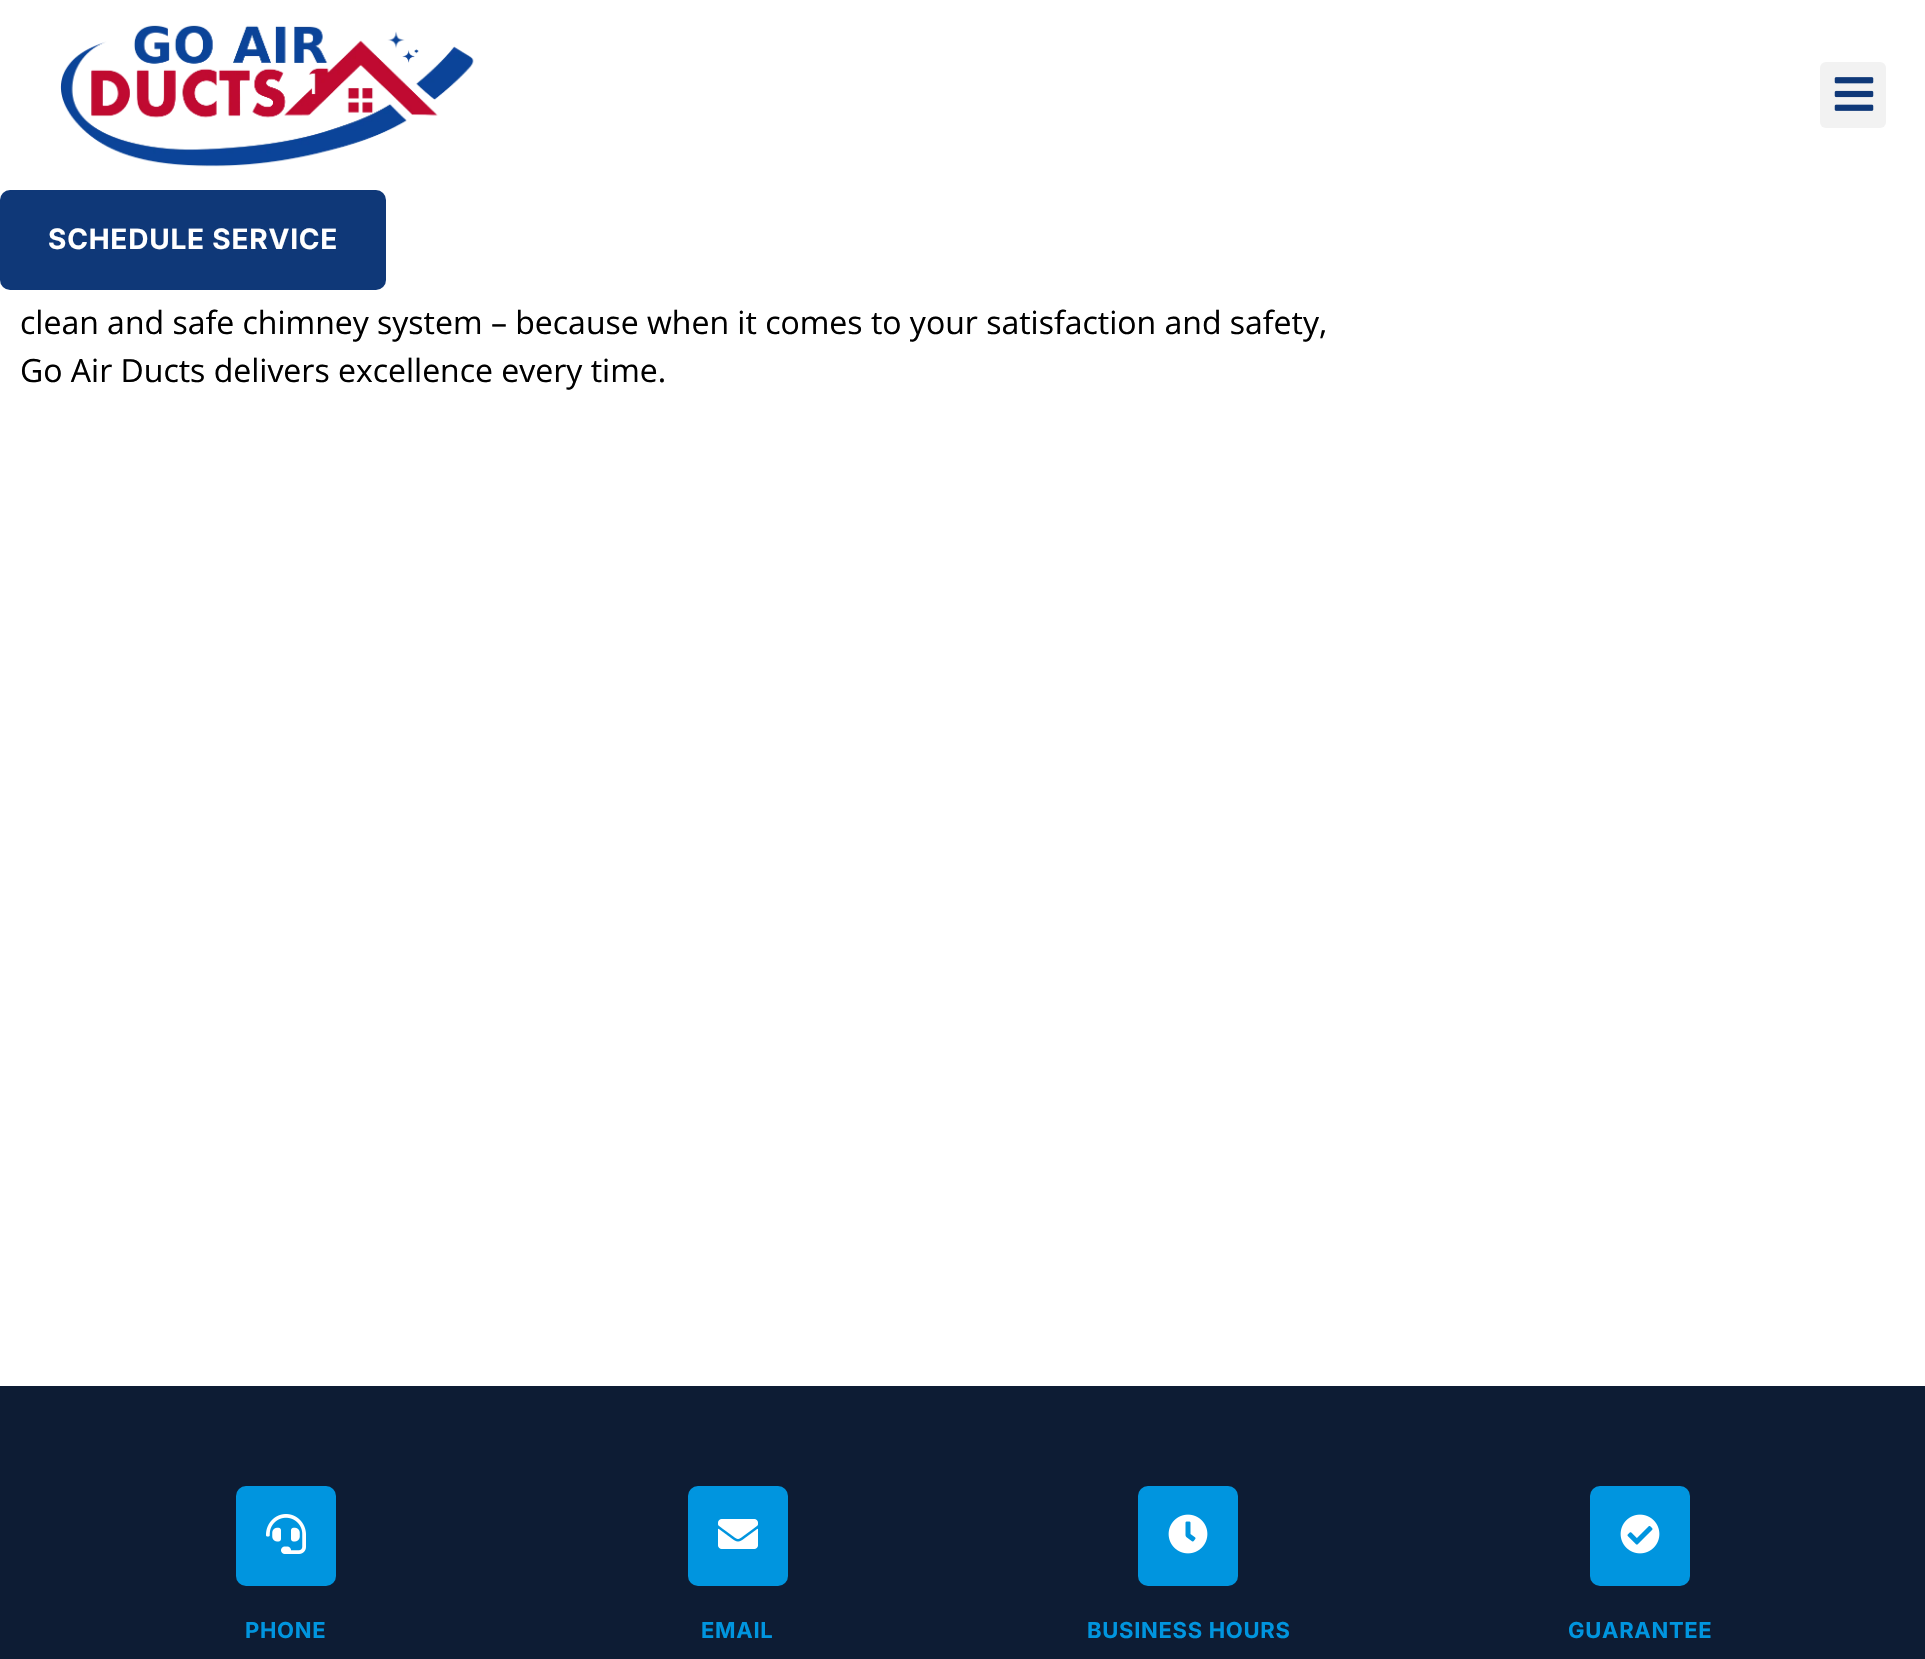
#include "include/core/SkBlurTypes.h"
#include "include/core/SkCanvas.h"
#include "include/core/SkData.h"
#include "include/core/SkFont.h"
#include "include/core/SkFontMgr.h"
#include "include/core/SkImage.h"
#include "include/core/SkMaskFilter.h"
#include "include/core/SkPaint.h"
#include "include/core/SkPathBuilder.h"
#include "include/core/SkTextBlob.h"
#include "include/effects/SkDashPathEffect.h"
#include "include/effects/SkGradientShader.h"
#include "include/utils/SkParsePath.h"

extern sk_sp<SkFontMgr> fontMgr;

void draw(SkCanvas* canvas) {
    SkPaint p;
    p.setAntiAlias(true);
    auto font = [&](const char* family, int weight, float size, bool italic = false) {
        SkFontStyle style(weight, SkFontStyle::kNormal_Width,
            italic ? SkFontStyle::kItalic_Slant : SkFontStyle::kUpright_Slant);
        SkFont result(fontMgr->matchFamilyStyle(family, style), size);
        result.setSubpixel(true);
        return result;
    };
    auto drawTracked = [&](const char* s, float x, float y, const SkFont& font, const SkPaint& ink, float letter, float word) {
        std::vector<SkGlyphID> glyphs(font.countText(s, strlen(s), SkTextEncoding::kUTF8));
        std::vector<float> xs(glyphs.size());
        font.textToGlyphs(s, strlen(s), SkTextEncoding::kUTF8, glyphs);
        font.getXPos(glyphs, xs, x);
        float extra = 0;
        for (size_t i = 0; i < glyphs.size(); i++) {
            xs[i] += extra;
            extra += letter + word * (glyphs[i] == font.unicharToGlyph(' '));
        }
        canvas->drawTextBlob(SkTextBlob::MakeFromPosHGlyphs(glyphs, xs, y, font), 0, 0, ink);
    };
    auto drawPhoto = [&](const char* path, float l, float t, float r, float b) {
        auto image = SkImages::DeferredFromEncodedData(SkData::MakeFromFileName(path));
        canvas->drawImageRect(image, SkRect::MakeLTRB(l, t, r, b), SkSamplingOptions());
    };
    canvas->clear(0xFFFFFFFF);
    drawPhoto("media/1.png", 60, 25, 474, 167);
    p.setColor(0xFFF2F2F2);
    canvas->drawRoundRect(SkRect::MakeLTRB(1820, 62, 1886, 128), 6, 6, p);
    drawPhoto("media/2.png", 1834, 77, 1874, 111);
    p.setColor(0xFF0F3878);
    canvas->drawRoundRect(SkRect::MakeLTRB(0, 190, 386, 290), 10, 10, p);
    auto font1 = font("Inter", 700, 28);
    p.setColor(0xFFFFFFFF);
    drawTracked("SCHEDULE SERVICE", 48, 249, font1, p, 0.8f, 0);
    auto font2 = font("Open Sans", 400, 32);
    p.setColor(0xFF000000);
    canvas->drawString("clean and safe chimney system – because when it comes to your satisfaction and safety,", 20, 334, font2, p);
    canvas->drawString("Go Air Ducts delivers excellence every time.", 20, 382, font2, p);
    p.setColor(0xFF0D1C34);
    canvas->drawRect(SkRect::MakeLTRB(0, 1386, 1925, 1659), p);
    p.setColor(0xFF0095DF);
    canvas->drawRoundRect(SkRect::MakeLTRB(236, 1486, 336, 1586), 10, 10, p);
    drawPhoto("media/3.png", 266, 1514, 306, 1554);
    auto font3 = font("Inter", 700, 22);
    drawTracked("PHONE", 245, 1638, font3, p, 0.7f, 0);
    canvas->drawRoundRect(SkRect::MakeLTRB(688, 1486, 788, 1586), 10, 10, p);
    drawPhoto("media/4.png", 718, 1519, 758, 1549);
    drawTracked("EMAIL", 701, 1638, font3, p, 0.7f, 0);
    canvas->drawRoundRect(SkRect::MakeLTRB(1138, 1486, 1238, 1586), 10, 10, p);
    drawPhoto("media/5.png", 1168, 1514, 1208, 1554);
    drawTracked("BUSINESS HOURS", 1087, 1638, font3, p, 0.7f, 0);
    canvas->drawRoundRect(SkRect::MakeLTRB(1590, 1486, 1690, 1586), 10, 10, p);
    drawPhoto("media/6.png", 1620, 1514, 1660, 1554);
    drawTracked("GUARANTEE", 1568, 1638, font3, p, 0.7f, 0);
}
